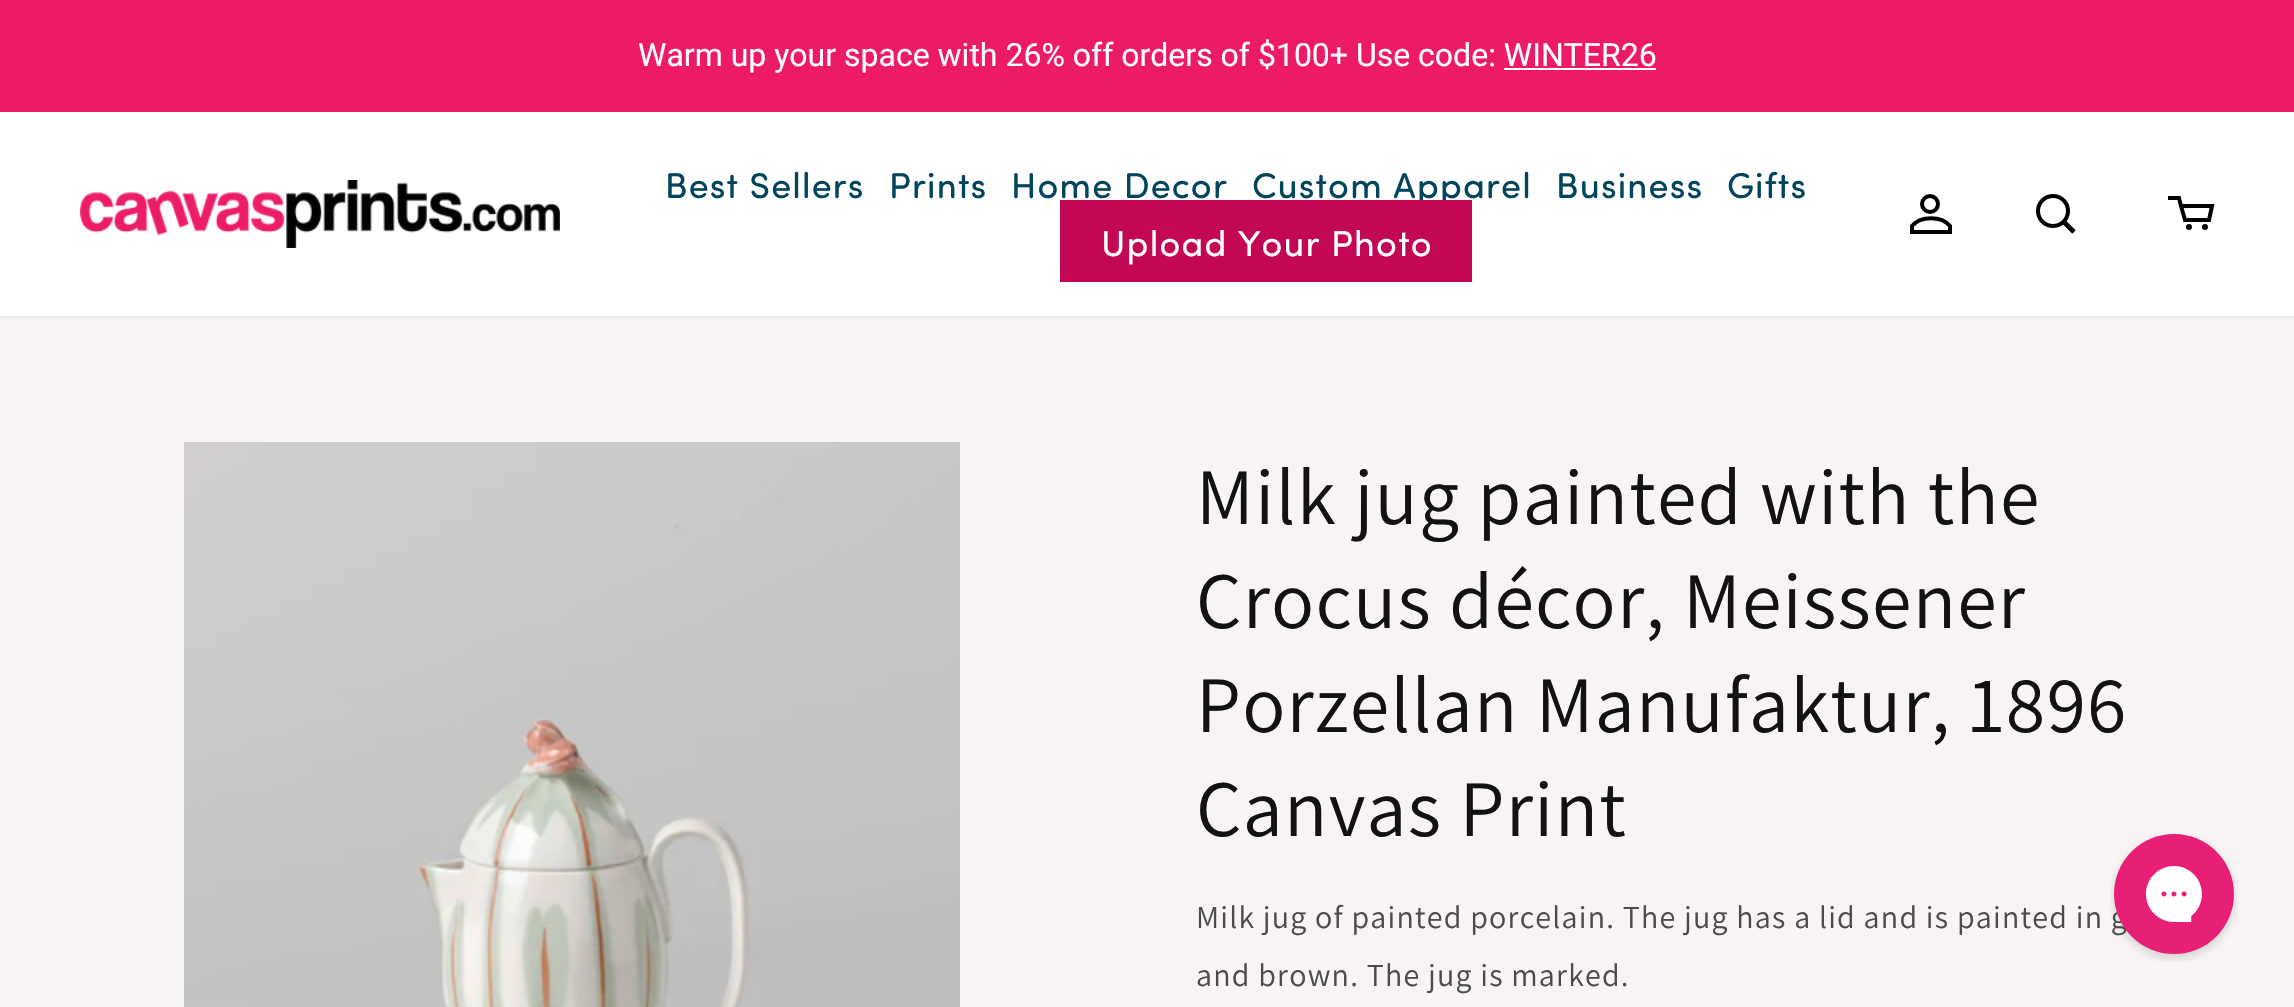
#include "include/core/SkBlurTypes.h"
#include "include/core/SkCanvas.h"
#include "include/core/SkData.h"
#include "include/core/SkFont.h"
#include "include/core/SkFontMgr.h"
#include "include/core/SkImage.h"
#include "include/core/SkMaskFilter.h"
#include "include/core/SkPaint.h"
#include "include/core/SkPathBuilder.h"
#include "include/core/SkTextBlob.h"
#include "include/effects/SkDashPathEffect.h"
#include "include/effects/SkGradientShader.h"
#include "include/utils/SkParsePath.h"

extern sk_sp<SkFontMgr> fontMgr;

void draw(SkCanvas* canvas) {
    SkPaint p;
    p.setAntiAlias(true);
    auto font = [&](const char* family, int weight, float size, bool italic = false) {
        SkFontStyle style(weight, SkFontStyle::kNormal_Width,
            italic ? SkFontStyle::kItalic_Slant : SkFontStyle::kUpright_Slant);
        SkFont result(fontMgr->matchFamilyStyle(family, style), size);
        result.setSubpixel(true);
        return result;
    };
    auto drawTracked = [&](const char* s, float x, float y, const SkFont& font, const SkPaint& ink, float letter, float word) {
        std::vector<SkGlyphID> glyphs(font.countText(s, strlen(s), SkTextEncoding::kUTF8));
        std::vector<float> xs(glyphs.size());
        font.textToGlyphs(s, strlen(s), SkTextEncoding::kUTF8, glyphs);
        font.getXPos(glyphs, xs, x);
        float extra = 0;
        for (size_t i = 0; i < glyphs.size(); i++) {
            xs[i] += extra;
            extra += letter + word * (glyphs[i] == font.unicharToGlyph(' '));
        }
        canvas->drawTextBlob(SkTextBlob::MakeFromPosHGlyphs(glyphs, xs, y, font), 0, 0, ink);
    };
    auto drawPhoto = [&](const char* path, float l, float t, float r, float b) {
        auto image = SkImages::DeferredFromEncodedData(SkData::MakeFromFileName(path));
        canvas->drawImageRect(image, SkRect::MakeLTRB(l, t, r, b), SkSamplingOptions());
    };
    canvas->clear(0xFFF8F4F4);
    p.setColor(0xFFED1B67);
    canvas->drawRect(SkRect::MakeLTRB(0, 0, 2294, 112), p);
    auto font1 = font("Roboto", 400, 32);
    p.setColor(0xFFFFFFFF);
    canvas->drawString("Warm up your space with 26% off orders of $100+ Use code: WINTER26", 638, 66, font1, p);
    {
        const struct { float l, t, r, b; SkColor color; } items[] = {
            {1504, 68, 1656, 70, 0xFFFFFFFF},
            {0, 112, 2294, 316, 0xFFFFFFFF},
            {0, 316, 2294, 318, 0xFFECECEC},
        };
        for (auto [l, t, r, b, color] : items) {
            p.setColor(color);
            canvas->drawRect(SkRect::MakeLTRB(l, t, r, b), p);
        }
    }
    drawPhoto("media/1.png", 80, 180, 560, 248);
    auto font2 = font("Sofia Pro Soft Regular", 400, 36);
    p.setColor(0xFF02455D);
    {
        const struct { const char* s; float x, y; } items[] = {
            {"Best Sellers", 665, 198},
            {"Prints", 889, 198},
            {"Home Decor", 1011, 198},
            {"Custom Apparel", 1252, 198},
            {"Business", 1556, 198},
            {"Gifts", 1727, 198},
        };
        for (auto [s, x, y] : items) {
            drawTracked(s, x, y, font2, p, 1.2f, 0);
        }
    }
    p.setColor(0xFFC20754);
    canvas->drawRect(SkRect::MakeLTRB(1060, 200, 1472, 282), p);
    auto font3 = font("Sofia", 400, 36);
    p.setColor(0xFFFFFFFF);
    drawTracked("Upload Your Photo", 1101, 256, font3, p, 1.2f, 0);
    p.setStyle(SkPaint::kStroke_Style);
    p.setStrokeWidth(4);
    p.setColor(0xFF000000);
    canvas->drawPath(SkPathBuilder().moveTo(1950, 232).lineTo(1912, 232).lineTo(1912, 226).cubicTo(1920, 215.5f, 1942, 215.5f, 1950, 226).close().detach(), p);
    canvas->drawCircle(1930, 204, 8, p);
    drawPhoto("media/2.png", 2036, 194, 2076, 234);
    canvas->drawPath(SkPathBuilder().moveTo(2168, 198).lineTo(2179, 198).lineTo(2181, 206).moveTo(2181, 206).lineTo(2185, 220).lineTo(2209, 220).lineTo(2212, 206).close().detach(), p);
    p.setStyle(SkPaint::kFill_Style);
    canvas->drawCircle(2189, 227, 2, p);
    p.setStyle(SkPaint::kStroke_Style);
    p.setStrokeWidth(2);
    canvas->drawCircle(2189, 227, 2, p);
    p.setStyle(SkPaint::kFill_Style);
    canvas->drawCircle(2205, 227, 2, p);
    p.setStyle(SkPaint::kStroke_Style);
    canvas->drawCircle(2205, 227, 2, p);
    drawPhoto("media/3.png", 184, 442, 960, 1007);
    auto font4 = font("Assistant", 400, 80);
    p.setStyle(SkPaint::kFill_Style);
    p.setColor(0xFF121212);
    {
        const struct { const char* s; float x, y; } items[] = {
            {"Milk jug painted with the", 1196, 524},
            {"Crocus décor, Meissener", 1196, 628},
            {"Porzellan Manufaktur, 1896", 1196, 732},
            {"Canvas Print", 1196, 836},
        };
        for (auto [s, x, y] : items) {
            drawTracked(s, x, y, font4, p, 1.2f, 0);
        }
    }
    auto font5 = font("Assistant", 400, 32);
    p.setColor(0xFF4C4B4B);
    drawTracked("Milk jug of painted porcelain. The jug has a lid and is painted in g", 1196, 928, font5, p, 1.2f, 0);
    drawTracked("and brown. The jug is marked.", 1196, 986, font5, p, 1.2f, 0);
    drawPhoto("media/4.png", 2110, 834, 2238, 962);
}
